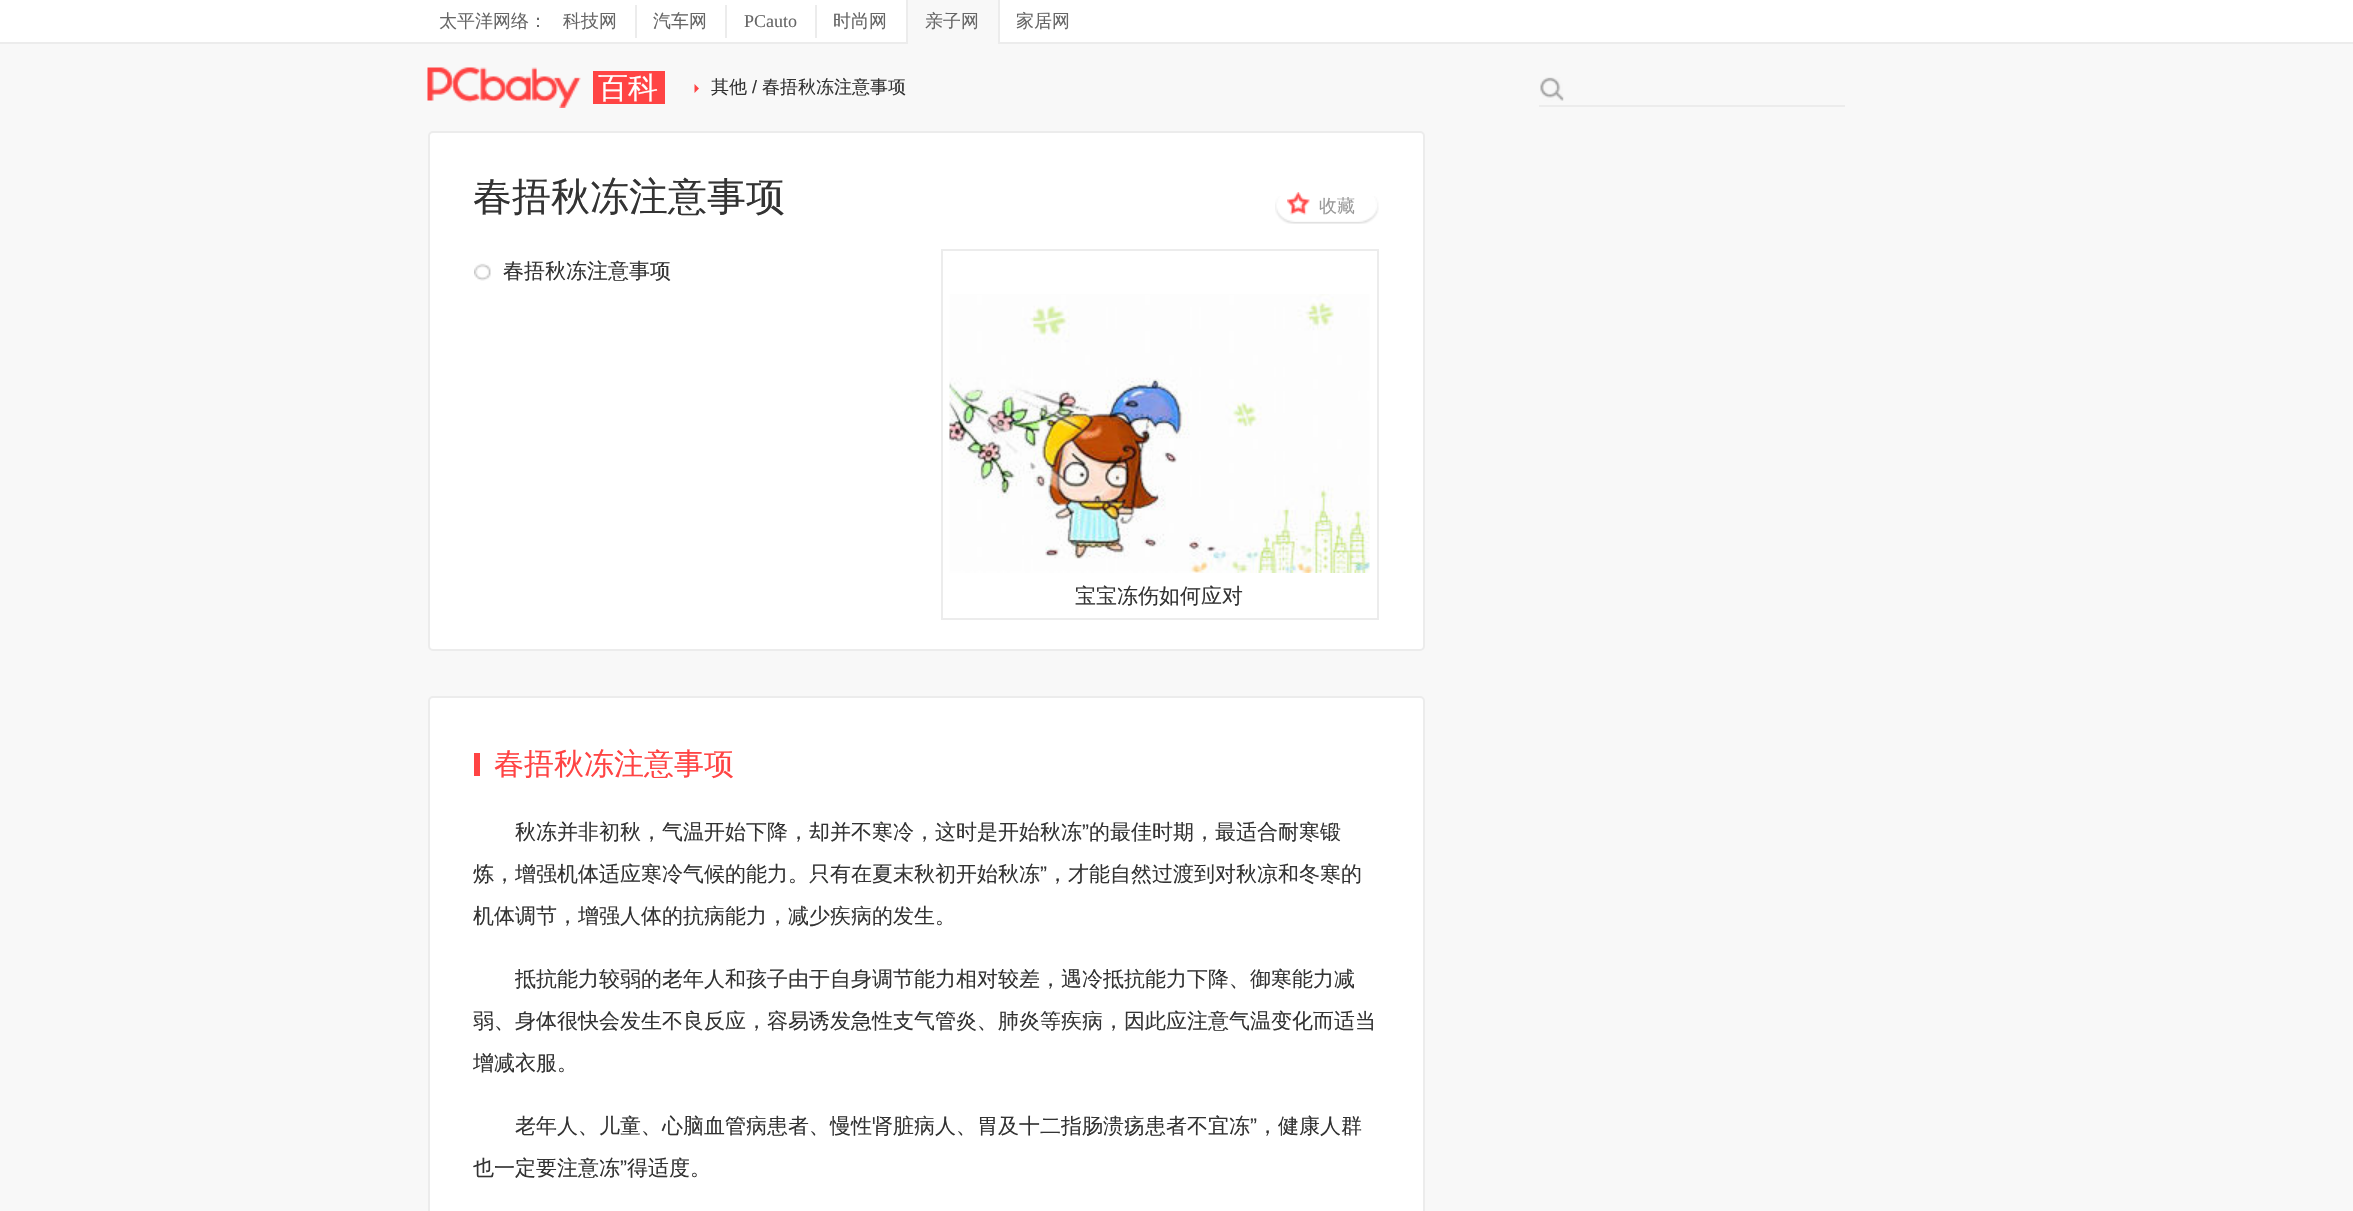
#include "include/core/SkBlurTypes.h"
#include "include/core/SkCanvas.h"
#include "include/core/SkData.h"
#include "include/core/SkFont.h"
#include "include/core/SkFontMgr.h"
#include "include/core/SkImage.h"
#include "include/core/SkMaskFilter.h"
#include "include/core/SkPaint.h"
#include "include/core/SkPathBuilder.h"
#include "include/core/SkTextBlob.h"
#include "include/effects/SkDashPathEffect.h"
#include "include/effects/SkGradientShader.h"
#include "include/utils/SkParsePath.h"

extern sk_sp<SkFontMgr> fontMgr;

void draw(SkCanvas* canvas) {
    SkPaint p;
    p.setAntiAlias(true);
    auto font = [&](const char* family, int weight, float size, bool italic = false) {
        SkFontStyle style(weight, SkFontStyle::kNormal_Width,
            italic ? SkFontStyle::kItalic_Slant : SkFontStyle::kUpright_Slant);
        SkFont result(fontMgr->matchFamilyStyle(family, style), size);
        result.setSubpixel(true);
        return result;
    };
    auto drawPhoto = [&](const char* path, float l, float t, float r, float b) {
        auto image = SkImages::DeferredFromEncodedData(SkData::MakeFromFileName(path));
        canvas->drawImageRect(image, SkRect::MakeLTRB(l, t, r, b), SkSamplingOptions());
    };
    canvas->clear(0xFFF8F8F8);
    p.setColor(0xFFFFFFFF);
    canvas->drawRect(SkRect::MakeLTRB(0, 0, 2353, 42), p);
    p.setColor(0xFFECECEC);
    canvas->drawRect(SkRect::MakeLTRB(0, 42, 2353, 44), p);
    auto font1 = font("WenQuanYi Zen Hei", 500, 18);
    p.setColor(0xFF666666);
    canvas->drawString("太平洋网络：", 439, 27, font1, p);
    canvas->drawString("科技网", 563, 27, font1, p);
    p.setColor(0xFFECECEC);
    canvas->drawRect(SkRect::MakeLTRB(635, 5, 637, 38), p);
    p.setColor(0xFF666666);
    canvas->drawString("汽车网", 653, 27, font1, p);
    p.setColor(0xFFECECEC);
    canvas->drawRect(SkRect::MakeLTRB(725, 5, 727, 38), p);
    auto font2 = font("Liberation Serif", 400, 18);
    p.setColor(0xFF666666);
    canvas->drawString("PCauto", 744, 27, font2, p);
    p.setColor(0xFFECECEC);
    canvas->drawRect(SkRect::MakeLTRB(815, 5, 817, 38), p);
    p.setColor(0xFF666666);
    canvas->drawString("时尚网", 833, 27, font1, p);
    {
        const struct { float l, t, r, b; SkColor color; } items[] = {
            {908, 0, 998, 44, 0xFFF8F8F8},
            {998, 0, 1000, 44, 0xFFECECEC},
            {906, 0, 908, 44, 0xFFECECEC},
        };
        for (auto [l, t, r, b, color] : items) {
            p.setColor(color);
            canvas->drawRect(SkRect::MakeLTRB(l, t, r, b), p);
        }
    }
    p.setColor(0xFF666666);
    canvas->drawString("亲子网", 925, 27, font1, p);
    canvas->drawString("家居网", 1016, 27, font1, p);
    drawPhoto("media/1.png", 427, 67, 581, 108);
    p.setColor(0xFFFF4444);
    canvas->drawRect(SkRect::MakeLTRB(593, 71, 665, 104), p);
    auto font3 = font("WenQuanYi Zen Hei", 500, 30);
    p.setColor(0xFFFFFFFF);
    canvas->drawString("百科", 598, 98, font3, p);
    p.setColor(0xFFFF4444);
    canvas->drawPath(SkPathBuilder().moveTo(694.5f, 93).lineTo(694.5f, 84).lineTo(699, 88.5f).close().detach(), p);
    p.setColor(0xFF333333);
    canvas->drawString("其他", 711, 93, font1, p);
    auto font4 = font("Liberation Sans", 400, 18);
    canvas->drawString("/", 752, 93, font4, p);
    canvas->drawString("春捂秋冻注意事项", 762, 93, font1, p);
    drawPhoto("media/2.png", 1540, 77, 1564, 101);
    p.setColor(0xFFECECEC);
    canvas->drawRect(SkRect::MakeLTRB(1539, 105, 1845, 107), p);
    p.setColor(0xFFFFFFFF);
    canvas->drawRoundRect(SkRect::MakeLTRB(429, 132, 1424, 650), 4, 4, p);
    p.setStyle(SkPaint::kStroke_Style);
    p.setStrokeWidth(2);
    p.setColor(0xFFECECEC);
    canvas->drawRoundRect(SkRect::MakeLTRB(429, 132, 1424, 650), 4, 4, p);
    auto font5 = font("WenQuanYi Zen Hei", 500, 39);
    p.setStyle(SkPaint::kFill_Style);
    p.setColor(0xFF333333);
    canvas->drawString("春捂秋冻注意事项", 473, 210, font5, p);
    drawPhoto("media/3.png", 1275, 196, 1379, 224);
    drawPhoto("media/4.png", 1287, 192, 1310, 215);
    p.setColor(0xFF999999);
    canvas->drawString("收藏", 1319, 212, font1, p);
    drawPhoto("media/5.png", 474, 263, 491, 281);
    auto font6 = font("WenQuanYi Zen Hei", 500, 21);
    p.setColor(0xFF333333);
    canvas->drawString("春捂秋冻注意事项", 503, 278, font6, p);
    p.setStyle(SkPaint::kStroke_Style);
    p.setColor(0xFFECECEC);
    canvas->drawRect(SkRect::MakeLTRB(942, 250, 1378, 619), p);
    drawPhoto("media/6.png", 949, 294, 1370, 573);
    p.setStyle(SkPaint::kFill_Style);
    p.setColor(0xFF333333);
    canvas->drawString("宝宝冻伤如何应对", 1075, 603, font6, p);
    p.setColor(0xFFFFFFFF);
    canvas->drawRoundRect(SkRect::MakeLTRB(429, 697, 1424, 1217), 4, 4, p);
    p.setStyle(SkPaint::kStroke_Style);
    p.setColor(0xFFECECEC);
    canvas->drawRoundRect(SkRect::MakeLTRB(429, 697, 1424, 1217), 4, 4, p);
    p.setStyle(SkPaint::kFill_Style);
    p.setColor(0xFFFF4444);
    canvas->drawRect(SkRect::MakeLTRB(474, 753, 480, 776), p);
    canvas->drawString("春捂秋冻注意事项", 494, 774, font3, p);
    p.setColor(0xFF333333);
    canvas->drawString("秋冻并非初秋，气温开始下降，却并不寒冷，这时是开始秋冻", 515, 839, font6, p);
    auto font7 = font("Liberation Sans", 400, 21);
    canvas->drawString("”", 1082, 839, font7, p);
    canvas->drawString("的最佳时期，最适合耐寒锻", 1089, 839, font6, p);
    canvas->drawString("炼，增强机体适应寒冷气候的能力。只有在夏末秋初开始秋冻", 473, 881, font6, p);
    canvas->drawString("”", 1040, 881, font7, p);
    {
        const struct { const char* s; float x, y; } items[] = {
            {"，才能自然过渡到对秋凉和冬寒的", 1047, 881},
            {"机体调节，增强人体的抗病能力，减少疾病的发生。", 473, 923},
            {"抵抗能力较弱的老年人和孩子由于自身调节能力相对较差，遇冷抵抗能力下降、御寒能力减", 515, 986},
            {"弱、身体很快会发生不良反应，容易诱发急性支气管炎、肺炎等疾病，因此应注意气温变化而适当", 473, 1028},
            {"增减衣服。", 473, 1070},
            {"老年人、儿童、心脑血管病患者、慢性肾脏病人、胃及十二指肠溃疡患者不宜冻", 515, 1133},
        };
        for (auto [s, x, y] : items) {
            canvas->drawString(s, x, y, font6, p);
        }
    }
    canvas->drawString("”", 1250, 1133, font7, p);
    canvas->drawString("，健康人群", 1257, 1133, font6, p);
    canvas->drawString("也一定要注意冻", 473, 1175, font6, p);
    canvas->drawString("”", 620, 1175, font7, p);
    canvas->drawString("得适度。", 627, 1175, font6, p);
}
